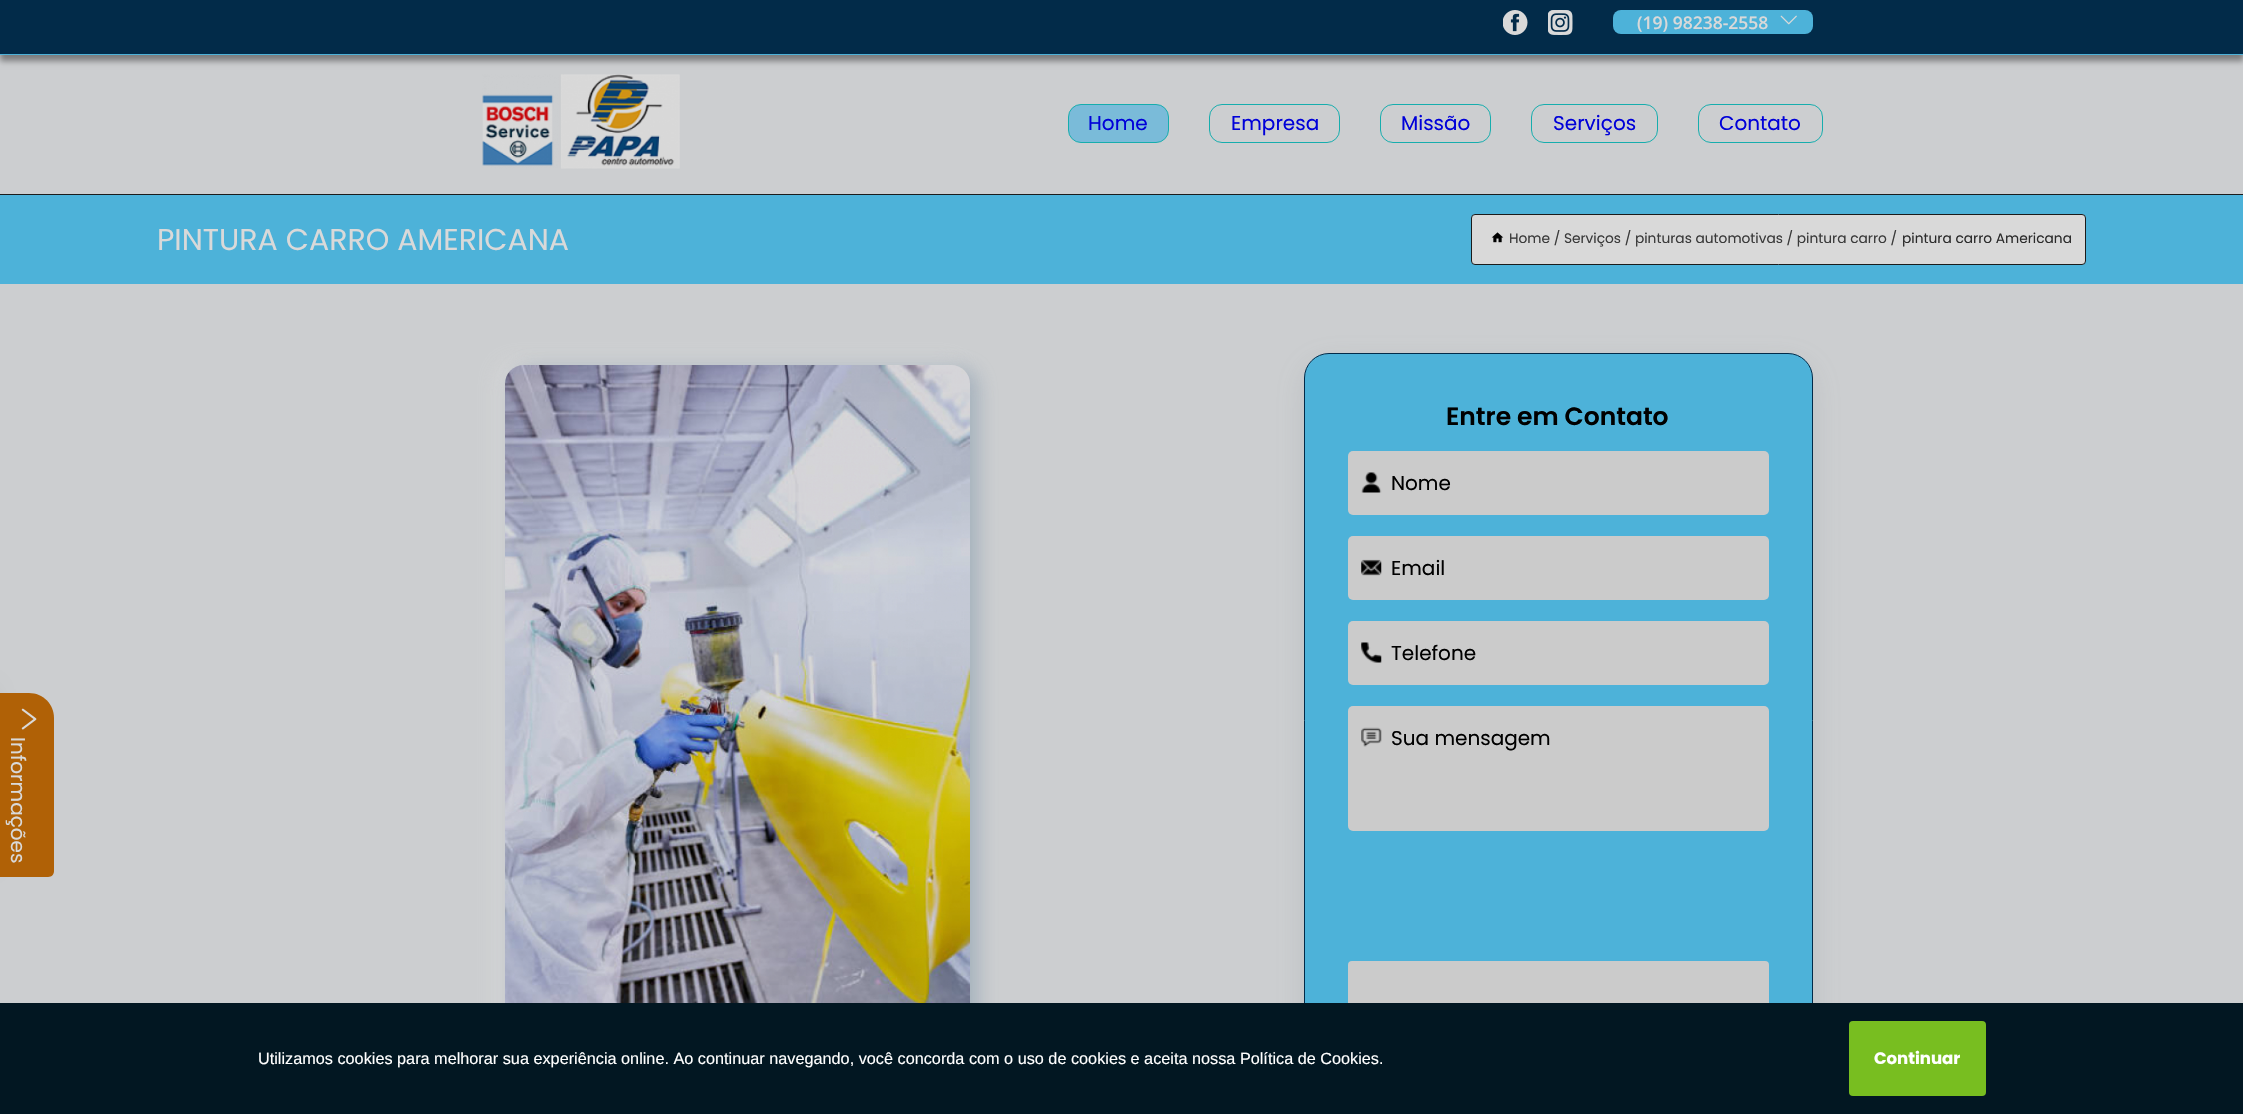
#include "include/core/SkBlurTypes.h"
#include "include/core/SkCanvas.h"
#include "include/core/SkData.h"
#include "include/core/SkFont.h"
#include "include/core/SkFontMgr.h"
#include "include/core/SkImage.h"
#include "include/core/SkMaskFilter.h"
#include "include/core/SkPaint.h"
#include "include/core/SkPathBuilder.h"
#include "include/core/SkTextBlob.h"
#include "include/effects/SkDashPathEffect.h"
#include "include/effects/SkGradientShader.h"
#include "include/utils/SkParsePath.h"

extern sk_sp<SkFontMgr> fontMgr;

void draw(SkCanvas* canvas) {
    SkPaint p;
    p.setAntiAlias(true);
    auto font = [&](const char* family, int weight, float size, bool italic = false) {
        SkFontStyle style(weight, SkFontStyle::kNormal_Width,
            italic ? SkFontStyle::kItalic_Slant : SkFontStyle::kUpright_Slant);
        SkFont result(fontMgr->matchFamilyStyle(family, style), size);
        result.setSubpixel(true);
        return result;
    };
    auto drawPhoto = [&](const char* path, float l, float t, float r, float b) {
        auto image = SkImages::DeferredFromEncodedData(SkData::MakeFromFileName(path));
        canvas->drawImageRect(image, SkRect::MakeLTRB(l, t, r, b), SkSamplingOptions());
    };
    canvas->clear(0xFFCCCED0);
    canvas->save();
    canvas->clipPath(SkPathBuilder(SkPathFillType::kEvenOdd).moveTo(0, 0).lineTo(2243, 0).lineTo(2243, 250).lineTo(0, 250).close().moveTo(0, 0).lineTo(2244, 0).lineTo(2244, 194).lineTo(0, 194).close().detach(), true);
    p.setColor(0x337F858C);
    p.setMaskFilter(SkMaskFilter::MakeBlur(kNormal_SkBlurStyle, 15));
    canvas->drawRect(SkRect::MakeLTRB(0, 10, 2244, 204), p);
    p.setMaskFilter(nullptr);
    canvas->restore();
    p.setColor(0x66000000);
    p.setMaskFilter(SkMaskFilter::MakeBlur(kNormal_SkBlurStyle, 3));
    canvas->drawRect(SkRect::MakeLTRB(0, 6, 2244, 61), p);
    p.setMaskFilter(nullptr);
    p.setColor(0xFF022B49);
    canvas->drawRect(SkRect::MakeLTRB(0, 0, 2243, 54), p);
    p.setColor(0xFF4DB2D9);
    canvas->drawRect(SkRect::MakeLTRB(0, 54, 2243, 55), p);
    drawPhoto("media/1.png", 1503, 10, 1528, 35);
    drawPhoto("media/2.png", 1548, 10, 1573, 35);
    canvas->drawRoundRect(SkRect::MakeLTRB(1613, 10, 1813, 34), 8, 8, p);
    auto font1 = font("Open Sans", 600, 17.5f);
    p.setColor(0xFFD9D9D9);
    canvas->drawString("(19) 98238-2558", 1637, 29, font1, p);
    drawPhoto("media/3.png", 1780, 15, 1797, 25);
    drawPhoto("media/4.png", 482, 74, 680, 169);
    p.setColor(0xFF7ABBD9);
    canvas->drawRoundRect(SkRect::MakeLTRB(1068.5f, 104.5f, 1168.5f, 142.5f), 12.5f, 12.5f, p);
    p.setStyle(SkPaint::kStroke_Style);
    p.setStrokeWidth(1);
    p.setColor(0xFF16ADAD);
    canvas->drawRoundRect(SkRect::MakeLTRB(1068.5f, 104.5f, 1168.5f, 142.5f), 12.5f, 12.5f, p);
    auto font2 = font("Poppins", 400, 20);
    p.setStyle(SkPaint::kFill_Style);
    p.setColor(0xFF0000D9);
    canvas->drawString("Home", 1088, 130, font2, p);
    p.setStyle(SkPaint::kStroke_Style);
    p.setColor(0xFF16ADAD);
    canvas->drawRoundRect(SkRect::MakeLTRB(1209.5f, 104.5f, 1339.5f, 142.5f), 12.5f, 12.5f, p);
    p.setStyle(SkPaint::kFill_Style);
    p.setColor(0xFF0000D9);
    canvas->drawString("Empresa", 1231, 130, font2, p);
    p.setStyle(SkPaint::kStroke_Style);
    p.setColor(0xFF16ADAD);
    canvas->drawRoundRect(SkRect::MakeLTRB(1380.5f, 104.5f, 1490.5f, 142.5f), 12.5f, 12.5f, p);
    p.setStyle(SkPaint::kFill_Style);
    p.setColor(0xFF0000D9);
    canvas->drawString("Missão", 1401, 130, font2, p);
    p.setStyle(SkPaint::kStroke_Style);
    p.setColor(0xFF16ADAD);
    canvas->drawRoundRect(SkRect::MakeLTRB(1531.5f, 104.5f, 1657.5f, 142.5f), 12.5f, 12.5f, p);
    p.setStyle(SkPaint::kFill_Style);
    p.setColor(0xFF0000D9);
    canvas->drawString("Serviços", 1553, 130, font2, p);
    p.setStyle(SkPaint::kStroke_Style);
    p.setColor(0xFF16ADAD);
    canvas->drawRoundRect(SkRect::MakeLTRB(1698.5f, 104.5f, 1822.5f, 142.5f), 12.5f, 12.5f, p);
    p.setStyle(SkPaint::kFill_Style);
    p.setColor(0xFF0000D9);
    canvas->drawString("Contato", 1719, 130, font2, p);
    p.setColor(0xFF4DB2D9);
    canvas->drawRect(SkRect::MakeLTRB(0, 195, 2243, 284), p);
    p.setColor(0xFF1B1B1B);
    canvas->drawRect(SkRect::MakeLTRB(0, 194, 2243, 195), p);
    auto font3 = font("Poppins", 400, 30);
    p.setColor(0xFFD9D9D9);
    canvas->drawString("PINTURA CARRO AMERICANA", 157, 250, font3, p);
    canvas->drawRoundRect(SkRect::MakeLTRB(1471.5f, 214.5f, 2085.5f, 264.5f), 3.5f, 3.5f, p);
    p.setStyle(SkPaint::kStroke_Style);
    p.setColor(0xFF1B1B1B);
    canvas->drawRoundRect(SkRect::MakeLTRB(1471.5f, 214.5f, 2085.5f, 264.5f), 3.5f, 3.5f, p);
    drawPhoto("media/5.png", 1491, 232, 1504, 243);
    auto font4 = font("Poppins", 400, 13.75f);
    p.setStyle(SkPaint::kFill_Style);
    p.setColor(0xFF3A3A3A);
    canvas->drawString("Home / Serviços / pinturas automotivas / pintura carro /", 1509, 243, font4, p);
    p.setColor(0xFF2B2B2B);
    canvas->drawString("pintura carro Americana", 1902, 243, font4, p);
    p.setColor(0xCCD9D9D9);
    p.setMaskFilter(SkMaskFilter::MakeBlur(kNormal_SkBlurStyle, 10));
    canvas->drawRoundRect(SkRect::MakeLTRB(498, 363, 963, 1060), 19, 19, p);
    p.setMaskFilter(nullptr);
    p.setColor(0x7A748CA2);
    p.setMaskFilter(SkMaskFilter::MakeBlur(kNormal_SkBlurStyle, 10));
    canvas->drawRoundRect(SkRect::MakeLTRB(513, 368, 978, 1065), 19, 19, p);
    p.setMaskFilter(nullptr);
    drawPhoto("media/6.png", 505, 365, 970, 1003);
    p.setColor(0x337F858C);
    p.setMaskFilter(SkMaskFilter::MakeBlur(kNormal_SkBlurStyle, 15));
    canvas->drawRoundRect(SkRect::MakeLTRB(1304, 363, 1813, 1098), 25, 25, p);
    p.setMaskFilter(nullptr);
    p.setColor(0xFF4DB2D9);
    canvas->drawRoundRect(SkRect::MakeLTRB(1304.5f, 353.5f, 1812.5f, 1087.5f), 24.5f, 24.5f, p);
    p.setStyle(SkPaint::kStroke_Style);
    p.setColor(0xFF022B49);
    canvas->drawRoundRect(SkRect::MakeLTRB(1304.5f, 353.5f, 1812.5f, 1087.5f), 24.5f, 24.5f, p);
    auto font5 = font("Poppins", 600, 25);
    p.setStyle(SkPaint::kFill_Style);
    p.setColor(0xFF000000);
    canvas->drawString("Entre em Contato", 1446, 425, font5, p);
    p.setColor(0xFFCBCBCB);
    canvas->drawRoundRect(SkRect::MakeLTRB(1348, 451, 1769, 515), 5, 5, p);
    drawPhoto("media/7.png", 1361, 472, 1382, 493);
    p.setColor(0xFF000000);
    canvas->drawString("Nome", 1391, 490, font2, p);
    p.setColor(0xFFCBCBCB);
    canvas->drawRoundRect(SkRect::MakeLTRB(1348, 536, 1769, 600), 5, 5, p);
    drawPhoto("media/8.png", 1361, 559, 1382, 576);
    p.setColor(0xFF000000);
    canvas->drawString("Email", 1391, 575, font2, p);
    p.setColor(0xFFCBCBCB);
    canvas->drawRoundRect(SkRect::MakeLTRB(1348, 621, 1769, 685), 5, 5, p);
    drawPhoto("media/9.png", 1361, 642, 1382, 663);
    p.setColor(0xFF000000);
    canvas->drawString("Telefone", 1391, 660, font2, p);
    p.setColor(0xFFCBCBCB);
    canvas->drawRoundRect(SkRect::MakeLTRB(1348, 706, 1769, 831), 5, 5, p);
    drawPhoto("media/10.png", 1361, 727, 1382, 747);
    p.setColor(0xFF000000);
    canvas->drawString("Sua mensagem", 1391, 745, font2, p);
    p.setColor(0xFFCBCBCB);
    canvas->drawRoundRect(SkRect::MakeLTRB(1348, 961, 1769, 1043), 4, 4, p);
    p.setColor(0xFF717171);
    p.setMaskFilter(SkMaskFilter::MakeBlur(kNormal_SkBlurStyle, 15));
    canvas->drawRect(SkRect::MakeLTRB(-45, 699, -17, 854), p);
    p.setMaskFilter(nullptr);
    p.setColor(0xFFB06106);
    canvas->drawPath(SkPathBuilder().moveTo(54, 718).lineTo(54, 871).cubicTo(54, 874, 52, 877, 48, 877).lineTo(-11, 877).lineTo(-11, 693).lineTo(29, 693).cubicTo(43, 693, 54, 704, 54, 718).close().detach(), p);
    drawPhoto("media/11.png", 21, 708, 37, 730);
    p.setColor(0xFFD9D9D9);
    canvas->save();
    canvas->rotate(90, 11, 737);
    canvas->drawString("Informações", 11, 737, font2, p);
    canvas->restore();
    p.setColor(0xFF021722);
    canvas->drawRect(SkRect::MakeLTRB(0, 1003, 2243, 1114), p);
    auto font6 = font("Liberation Sans", 400, 16.25f);
    p.setColor(0xFFFFFFFF);
    canvas->drawString("Utilizamos cookies para melhorar sua experiência online. Ao continuar navegando, você concorda com o uso de cookies e aceita nossa Política de Cookies.", 258, 1064, font6, p);
    p.setColor(0xFF78BE20);
    canvas->drawRoundRect(SkRect::MakeLTRB(1849, 1021, 1986, 1096), 4, 4, p);
    auto font7 = font("Poppins", 700, 16.5f);
    p.setColor(0xFFFFFFFF);
    canvas->drawString("Continuar", 1874, 1064, font7, p);
}
